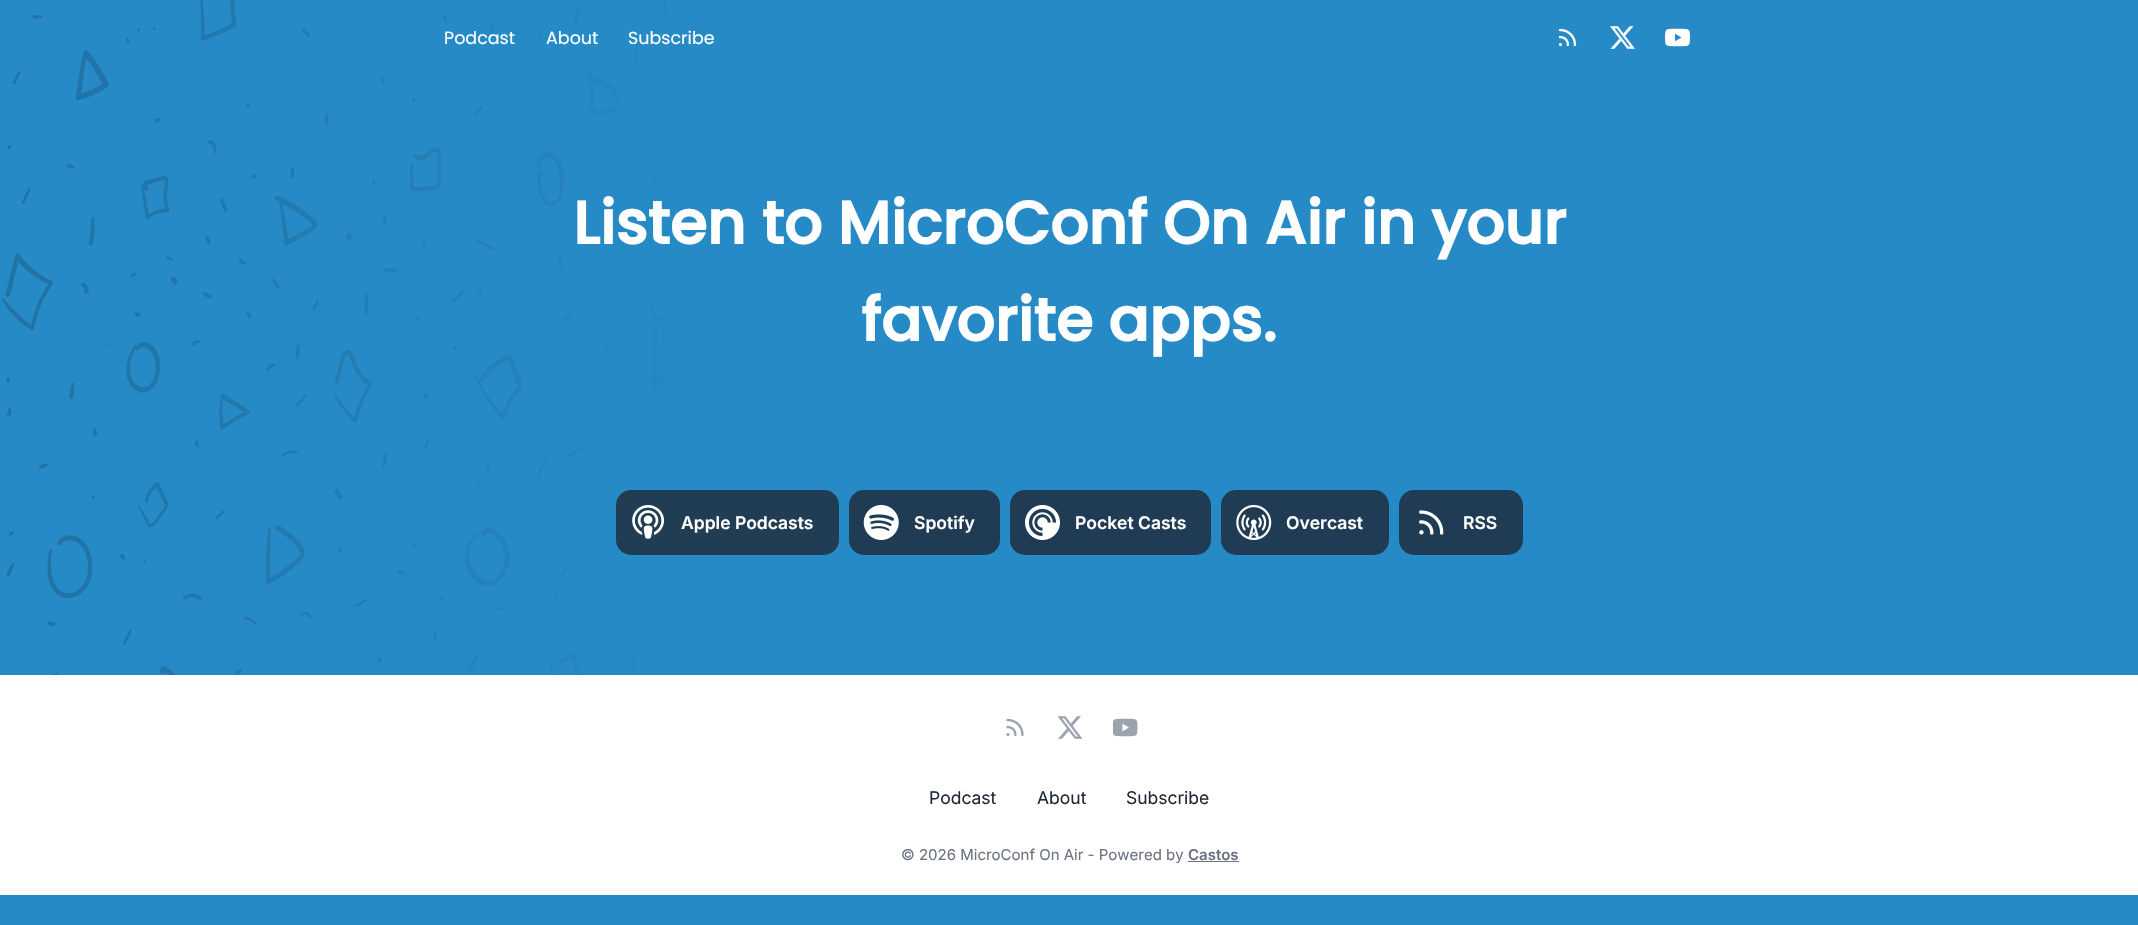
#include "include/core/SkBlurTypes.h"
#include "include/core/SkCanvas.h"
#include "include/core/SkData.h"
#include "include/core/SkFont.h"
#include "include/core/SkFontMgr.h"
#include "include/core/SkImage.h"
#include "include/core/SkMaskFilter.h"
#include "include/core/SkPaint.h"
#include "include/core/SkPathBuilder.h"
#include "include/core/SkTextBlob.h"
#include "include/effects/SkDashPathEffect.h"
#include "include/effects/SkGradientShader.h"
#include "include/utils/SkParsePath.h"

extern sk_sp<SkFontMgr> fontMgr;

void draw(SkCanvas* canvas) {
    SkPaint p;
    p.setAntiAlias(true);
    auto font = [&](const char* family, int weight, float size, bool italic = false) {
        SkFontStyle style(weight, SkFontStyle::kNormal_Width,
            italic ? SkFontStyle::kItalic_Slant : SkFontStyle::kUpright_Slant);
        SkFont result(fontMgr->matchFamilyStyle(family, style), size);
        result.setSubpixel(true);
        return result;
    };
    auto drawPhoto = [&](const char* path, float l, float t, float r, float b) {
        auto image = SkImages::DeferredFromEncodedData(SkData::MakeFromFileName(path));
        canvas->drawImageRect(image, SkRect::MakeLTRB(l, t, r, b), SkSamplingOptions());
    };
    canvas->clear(0xFF268AC6);
    drawPhoto("media/1.png", 2, 0, 666, 675);
    auto font1 = font("Poppins", 400, 17.5f);
    p.setColor(0xFFFFFFFF);
    {
        const struct { const char* s; float x, y; } items[] = {
            {"Podcast", 444, 44},
            {"About", 546, 44},
            {"Subscribe", 628, 44},
        };
        for (auto [s, x, y] : items) {
            canvas->drawString(s, x, y, font1, p);
        }
    }
    drawPhoto("media/2.png", 1558, 28, 1577, 47);
    drawPhoto("media/3.png", 1610, 26, 1635, 49);
    drawPhoto("media/4.png", 1665, 28, 1690, 47);
    auto font2 = font("Poppins", 700, 60);
    canvas->drawString("Listen to MicroConf On Air in your", 573, 244, font2, p);
    canvas->drawString("favorite apps.", 861, 341, font2, p);
    p.setColor(0xCC1F2937);
    canvas->drawRoundRect(SkRect::MakeLTRB(616, 490, 839, 555), 15, 15, p);
    drawPhoto("media/5.png", 632, 505, 665, 539);
    auto font3 = font("Inter", 600, 17.5f);
    p.setColor(0xFFFFFFFF);
    canvas->drawString("Apple Podcasts", 681, 529, font3, p);
    p.setColor(0xFF203C54);
    canvas->drawRoundRect(SkRect::MakeLTRB(849, 490, 1000, 555), 15, 15, p);
    drawPhoto("media/6.png", 863, 505, 899, 540);
    p.setColor(0xFFFFFFFF);
    canvas->drawString("Spotify", 914, 529, font3, p);
    p.setColor(0xFF203C54);
    canvas->drawRoundRect(SkRect::MakeLTRB(1010, 490, 1211, 555), 15, 15, p);
    drawPhoto("media/7.png", 1025, 505, 1060, 540);
    p.setColor(0xFFFFFFFF);
    canvas->drawString("Pocket Casts", 1075, 529, font3, p);
    p.setColor(0xFF203C54);
    canvas->drawRoundRect(SkRect::MakeLTRB(1221, 490, 1389, 555), 15, 15, p);
    drawPhoto("media/8.png", 1236, 505, 1272, 540);
    p.setColor(0xFFFFFFFF);
    canvas->drawString("Overcast", 1286, 529, font3, p);
    p.setColor(0xFF203C54);
    canvas->drawRoundRect(SkRect::MakeLTRB(1399, 490, 1523, 555), 15, 15, p);
    drawPhoto("media/9.png", 1419, 510, 1444, 535);
    p.setColor(0xFFFFFFFF);
    canvas->drawString("RSS", 1463, 529, font3, p);
    canvas->drawRect(SkRect::MakeLTRB(0, 675, 2138, 895), p);
    drawPhoto("media/10.png", 1006, 718, 1024, 737);
    drawPhoto("media/11.png", 1058, 716, 1083, 739);
    drawPhoto("media/12.png", 1113, 718, 1138, 737);
    auto font4 = font("Inter", 400, 17.5f);
    p.setColor(0xFF1F2937);
    {
        const struct { const char* s; float x, y; } items[] = {
            {"Podcast", 929, 804},
            {"About", 1037, 804},
            {"Subscribe", 1126, 804},
        };
        for (auto [s, x, y] : items) {
            canvas->drawString(s, x, y, font4, p);
        }
    }
    auto font5 = font("Inter", 400, 15);
    p.setColor(0xFF6B7280);
    canvas->drawString("© 2026 MicroConf On Air - Powered by", 901, 860, font5, p);
    auto font6 = font("Inter", 600, 15);
    canvas->drawString("Castos", 1188, 860, font6, p);
    canvas->drawRect(SkRect::MakeLTRB(1188, 861, 1239, 862), p);
}
